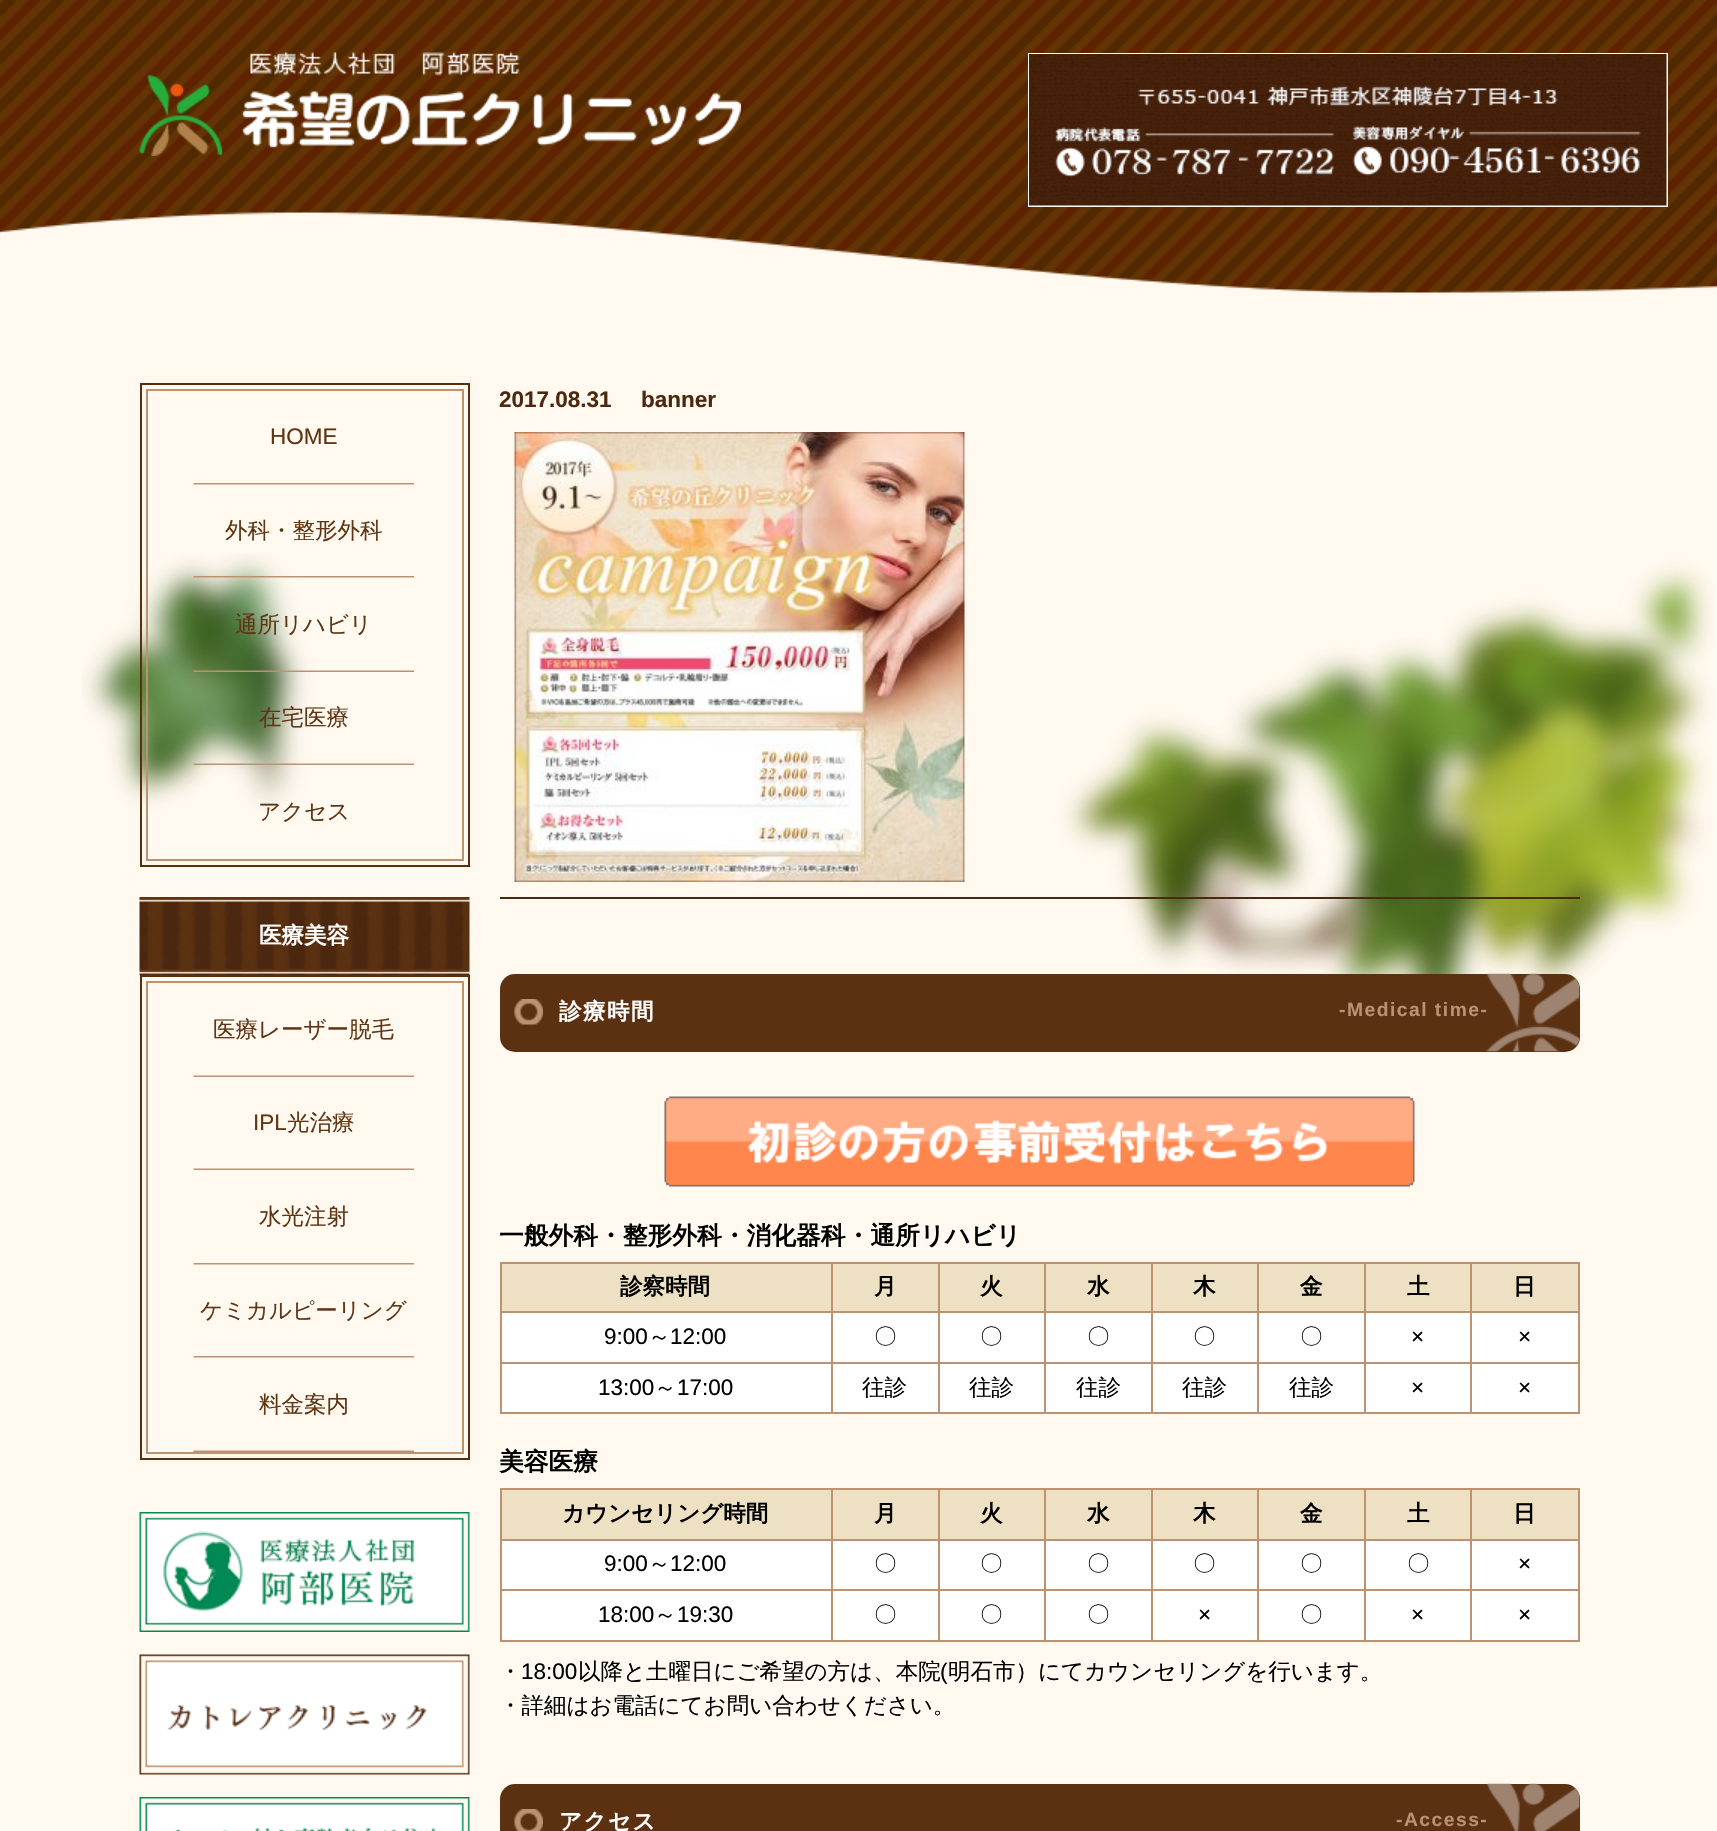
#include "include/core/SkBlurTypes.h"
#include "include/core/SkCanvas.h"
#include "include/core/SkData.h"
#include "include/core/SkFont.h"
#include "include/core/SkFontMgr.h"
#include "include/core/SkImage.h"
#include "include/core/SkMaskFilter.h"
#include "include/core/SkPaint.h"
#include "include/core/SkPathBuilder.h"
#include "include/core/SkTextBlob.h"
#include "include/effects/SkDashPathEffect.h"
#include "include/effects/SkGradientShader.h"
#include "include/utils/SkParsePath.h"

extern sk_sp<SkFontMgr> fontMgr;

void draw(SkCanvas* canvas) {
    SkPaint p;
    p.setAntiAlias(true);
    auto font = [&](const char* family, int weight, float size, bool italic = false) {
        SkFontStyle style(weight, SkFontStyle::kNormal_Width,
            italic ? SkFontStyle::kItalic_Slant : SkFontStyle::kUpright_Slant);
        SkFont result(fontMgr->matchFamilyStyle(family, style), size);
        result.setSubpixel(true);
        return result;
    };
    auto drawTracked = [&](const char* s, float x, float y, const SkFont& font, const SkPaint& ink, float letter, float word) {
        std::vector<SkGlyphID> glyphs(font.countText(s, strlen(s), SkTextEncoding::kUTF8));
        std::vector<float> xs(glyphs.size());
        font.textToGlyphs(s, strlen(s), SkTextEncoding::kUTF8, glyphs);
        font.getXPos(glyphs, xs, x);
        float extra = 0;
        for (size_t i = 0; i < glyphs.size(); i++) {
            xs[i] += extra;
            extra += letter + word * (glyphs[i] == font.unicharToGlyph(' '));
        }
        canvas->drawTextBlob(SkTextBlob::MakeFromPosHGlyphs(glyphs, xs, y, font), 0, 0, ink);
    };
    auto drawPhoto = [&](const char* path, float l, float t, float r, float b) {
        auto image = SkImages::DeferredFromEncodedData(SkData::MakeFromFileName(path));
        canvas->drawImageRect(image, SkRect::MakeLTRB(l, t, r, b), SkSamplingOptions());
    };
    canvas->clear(0xFFFFF9F0);
    drawPhoto("media/1.png", 82, 554, 1713, 984);
    drawPhoto("media/2.png", 0, 0, 1717, 293);
    drawPhoto("media/3.png", 139, 52, 741, 156);
    p.setStyle(SkPaint::kStroke_Style);
    p.setStrokeWidth(2);
    p.setColor(0xFFFFFFFF);
    canvas->drawRect(SkRect::MakeLTRB(1029, 54, 1667, 206), p);
    drawPhoto("media/4.png", 1029, 54, 1667, 206);
    p.setColor(0xFF592F10);
    canvas->drawRect(SkRect::MakeLTRB(141, 384, 469, 866), p);
    p.setColor(0xFFBD9271);
    canvas->drawRect(SkRect::MakeLTRB(147, 390, 463, 860), p);
    drawPhoto("media/5.png", 193, 483, 414, 485);
    auto font1 = font("Liberation Sans", 400, 22.5f);
    p.setStyle(SkPaint::kFill_Style);
    p.setColor(0xFF5F3513);
    canvas->drawString("HOME", 270, 444, font1, p);
    drawPhoto("media/6.png", 193, 576, 414, 578);
    auto font2 = font("WenQuanYi Zen Hei", 500, 22.5f);
    canvas->drawString("外科・整形外科", 225, 538, font2, p);
    drawPhoto("media/7.png", 193, 670, 414, 672);
    canvas->drawString("通所リハビリ", 235, 632, font2, p);
    drawPhoto("media/8.png", 193, 763, 414, 765);
    canvas->drawString("在宅医療", 259, 725, font2, p);
    canvas->drawString("アクセス", 258, 819, font2, p);
    drawPhoto("media/9.png", 139, 897, 470, 975);
    auto font3 = font("WenQuanYi Zen Hei", 700, 22.5f);
    p.setColor(0xFFFFFFFF);
    canvas->drawString("医療美容", 259, 943, font3, p);
    p.setStyle(SkPaint::kStroke_Style);
    p.setColor(0xFF592F10);
    canvas->drawRect(SkRect::MakeLTRB(141, 976, 469, 1459), p);
    p.setColor(0xFFBD9271);
    canvas->drawRect(SkRect::MakeLTRB(147, 982, 463, 1453), p);
    drawPhoto("media/10.png", 193, 1075, 414, 1077);
    p.setStyle(SkPaint::kFill_Style);
    p.setColor(0xFF5F3513);
    canvas->drawString("医療レーザー脱毛", 213, 1037, font2, p);
    drawPhoto("media/10.png", 193, 1168, 414, 1170);
    canvas->drawString("IPL", 253, 1130, font1, p);
    canvas->drawString("光治療", 287, 1130, font2, p);
    drawPhoto("media/5.png", 193, 1263, 414, 1265);
    canvas->drawString("水光注射", 259, 1224, font2, p);
    drawPhoto("media/5.png", 193, 1356, 414, 1358);
    canvas->drawString("ケミカルピーリング", 200, 1318, font2, p);
    drawPhoto("media/10.png", 193, 1450, 414, 1452);
    canvas->drawString("料金案内", 259, 1412, font2, p);
    drawPhoto("media/11.png", 139, 1512, 470, 1632);
    drawPhoto("media/12.png", 139, 1654, 470, 1775);
    drawPhoto("media/13.png", 139, 1797, 470, 1831);
    auto font4 = font("Liberation Sans", 700, 22.5f);
    p.setColor(0xFF4D2810);
    canvas->drawString("2017.08.31", 499, 407, font4, p);
    canvas->drawString("banner", 641, 407, font4, p);
    canvas->drawRect(SkRect::MakeLTRB(500, 897, 1580, 899), p);
    drawPhoto("media/14.png", 514, 432, 965, 882);
    p.setColor(0xFF5B3111);
    canvas->drawRoundRect(SkRect::MakeLTRB(500, 974, 1580, 1052), 15, 15, p);
    drawPhoto("media/15.png", 1486, 973, 1580, 1052);
    drawPhoto("media/16.png", 514, 999, 543, 1025);
    p.setColor(0xFFFFFFFF);
    drawTracked("診療時間", 559, 1019, font3, p, 1.5f, 0);
    auto font5 = font("Liberation Sans", 700, 19.25f);
    p.setColor(0xFFB89275);
    drawTracked("-Medical time-", 1339, 1016, font5, p, 1.5f, 0);
    drawPhoto("media/17.png", 664, 1096, 1415, 1187);
    auto font6 = font("WenQuanYi Zen Hei", 700, 24.75f);
    p.setColor(0xFF000000);
    canvas->drawString("一般外科・整形外科・消化器科・通所リハビリ", 499, 1244, font6, p);
    {
        const struct { float l, t, r, b; SkColor color; } items[] = {
            {502, 1313, 1578, 1412, 0xFFFFFFFF},
            {502, 1264, 831, 1311, 0xFFEDE0C3},
            {1470, 1262, 1580, 1264, 0xFFBD9271},
            {1470, 1311, 1580, 1313, 0xFFBD9271},
            {1470, 1362, 1580, 1364, 0xFFBD9271},
            {1578, 1362, 1580, 1413, 0xFFBD9271},
            {1470, 1412, 1580, 1414, 0xFFBD9271},
            {1470, 1362, 1472, 1413, 0xFFBD9271},
            {1364, 1362, 1472, 1364, 0xFFBD9271},
            {1470, 1311, 1472, 1364, 0xFFBD9271},
            {1364, 1311, 1472, 1313, 0xFFBD9271},
            {1470, 1262, 1472, 1313, 0xFFBD9271},
            {1364, 1262, 1472, 1264, 0xFFBD9271},
            {1364, 1412, 1472, 1414, 0xFFBD9271},
            {1364, 1362, 1366, 1413, 0xFFBD9271},
            {1257, 1362, 1365, 1364, 0xFFBD9271},
            {1364, 1311, 1366, 1364, 0xFFBD9271},
            {1257, 1311, 1365, 1313, 0xFFBD9271},
            {1364, 1262, 1366, 1313, 0xFFBD9271},
            {1257, 1262, 1365, 1264, 0xFFBD9271},
            {1257, 1412, 1365, 1414, 0xFFBD9271},
            {1257, 1362, 1259, 1413, 0xFFBD9271},
            {1151, 1362, 1259, 1364, 0xFFBD9271},
            {1257, 1311, 1259, 1364, 0xFFBD9271},
            {1151, 1311, 1259, 1313, 0xFFBD9271},
            {1257, 1262, 1259, 1313, 0xFFBD9271},
            {1151, 1262, 1259, 1264, 0xFFBD9271},
            {1151, 1412, 1259, 1414, 0xFFBD9271},
            {1151, 1362, 1153, 1413, 0xFFBD9271},
            {1044, 1362, 1152, 1364, 0xFFBD9271},
            {1151, 1311, 1153, 1364, 0xFFBD9271},
            {1044, 1311, 1152, 1313, 0xFFBD9271},
            {1151, 1262, 1153, 1313, 0xFFBD9271},
            {1044, 1262, 1152, 1264, 0xFFBD9271},
            {1044, 1412, 1152, 1414, 0xFFBD9271},
            {1044, 1362, 1046, 1413, 0xFFBD9271},
            {938, 1362, 1046, 1364, 0xFFBD9271},
            {1044, 1311, 1046, 1364, 0xFFBD9271},
            {938, 1311, 1046, 1313, 0xFFBD9271},
            {1044, 1262, 1046, 1313, 0xFFBD9271},
            {938, 1262, 1046, 1264, 0xFFBD9271},
            {938, 1412, 1046, 1414, 0xFFBD9271},
            {938, 1362, 940, 1413, 0xFFBD9271},
            {831, 1362, 939, 1364, 0xFFBD9271},
            {938, 1311, 940, 1364, 0xFFBD9271},
            {831, 1311, 939, 1313, 0xFFBD9271},
            {938, 1262, 940, 1313, 0xFFBD9271},
            {831, 1262, 939, 1264, 0xFFBD9271},
            {831, 1412, 939, 1414, 0xFFBD9271},
            {831, 1362, 833, 1413, 0xFFBD9271},
            {500, 1362, 833, 1364, 0xFFBD9271},
            {831, 1311, 833, 1364, 0xFFBD9271},
            {500, 1311, 833, 1313, 0xFFBD9271},
            {831, 1262, 833, 1313, 0xFFBD9271},
            {500, 1262, 833, 1264, 0xFFBD9271},
            {500, 1412, 833, 1414, 0xFFBD9271},
            {500, 1362, 502, 1413, 0xFFBD9271},
            {500, 1311, 502, 1364, 0xFFBD9271},
            {500, 1262, 502, 1313, 0xFFBD9271},
        };
        for (auto [l, t, r, b, color] : items) {
            p.setColor(color);
            canvas->drawRect(SkRect::MakeLTRB(l, t, r, b), p);
        }
    }
    p.setColor(0xFF000000);
    canvas->drawString("診察時間", 620, 1294, font3, p);
    p.setColor(0xFFEDE0C3);
    canvas->drawRect(SkRect::MakeLTRB(833, 1264, 938, 1311), p);
    p.setColor(0xFF000000);
    canvas->drawString("月", 874, 1294, font3, p);
    p.setColor(0xFFEDE0C3);
    canvas->drawRect(SkRect::MakeLTRB(940, 1264, 1044, 1311), p);
    p.setColor(0xFF000000);
    canvas->drawString("火", 980, 1294, font3, p);
    p.setColor(0xFFEDE0C3);
    canvas->drawRect(SkRect::MakeLTRB(1046, 1264, 1151, 1311), p);
    p.setColor(0xFF000000);
    canvas->drawString("水", 1087, 1294, font3, p);
    p.setColor(0xFFEDE0C3);
    canvas->drawRect(SkRect::MakeLTRB(1153, 1264, 1257, 1311), p);
    p.setColor(0xFF000000);
    canvas->drawString("木", 1193, 1294, font3, p);
    p.setColor(0xFFEDE0C3);
    canvas->drawRect(SkRect::MakeLTRB(1259, 1264, 1364, 1311), p);
    p.setColor(0xFF000000);
    canvas->drawString("金", 1300, 1294, font3, p);
    p.setColor(0xFFEDE0C3);
    canvas->drawRect(SkRect::MakeLTRB(1366, 1264, 1470, 1311), p);
    p.setColor(0xFF000000);
    canvas->drawString("土", 1407, 1294, font3, p);
    {
        const struct { float l, t, r, b; SkColor color; } items[] = {
            {1472, 1264, 1578, 1311, 0xFFEDE0C3},
            {1578, 1311, 1580, 1364, 0xFFBD9271},
            {1578, 1262, 1580, 1313, 0xFFBD9271},
        };
        for (auto [l, t, r, b, color] : items) {
            p.setColor(color);
            canvas->drawRect(SkRect::MakeLTRB(l, t, r, b), p);
        }
    }
    p.setColor(0xFF000000);
    canvas->drawString("日", 1513, 1294, font3, p);
    canvas->drawString("9:00", 604, 1344, font1, p);
    canvas->drawString("～", 648, 1344, font2, p);
    canvas->drawString("12:00", 670, 1344, font1, p);
    {
        const struct { const char* s; float x, y; } items[] = {
            {"〇", 874, 1344},
            {"〇", 980, 1344},
            {"〇", 1087, 1344},
            {"〇", 1193, 1344},
            {"〇", 1300, 1344},
        };
        for (auto [s, x, y] : items) {
            canvas->drawString(s, x, y, font2, p);
        }
    }
    {
        const struct { const char* s; float x, y; } items[] = {
            {"×", 1411, 1344},
            {"×", 1518, 1344},
            {"13:00", 598, 1395},
        };
        for (auto [s, x, y] : items) {
            canvas->drawString(s, x, y, font1, p);
        }
    }
    canvas->drawString("～", 654, 1395, font2, p);
    canvas->drawString("17:00", 677, 1395, font1, p);
    {
        const struct { const char* s; float x, y; } items[] = {
            {"往診", 862, 1395},
            {"往診", 969, 1395},
            {"往診", 1076, 1395},
            {"往診", 1182, 1395},
            {"往診", 1289, 1395},
        };
        for (auto [s, x, y] : items) {
            canvas->drawString(s, x, y, font2, p);
        }
    }
    canvas->drawString("×", 1411, 1395, font1, p);
    canvas->drawString("×", 1518, 1395, font1, p);
    canvas->drawString("美容医療", 499, 1470, font6, p);
    {
        const struct { float l, t, r, b; SkColor color; } items[] = {
            {502, 1541, 1578, 1640, 0xFFFFFFFF},
            {502, 1490, 831, 1539, 0xFFEDE0C3},
            {1470, 1488, 1580, 1490, 0xFFBD9271},
            {1470, 1539, 1580, 1541, 0xFFBD9271},
            {1470, 1589, 1580, 1591, 0xFFBD9271},
            {1578, 1589, 1580, 1641, 0xFFBD9271},
            {1470, 1640, 1580, 1642, 0xFFBD9271},
            {1470, 1589, 1472, 1641, 0xFFBD9271},
            {1364, 1589, 1472, 1591, 0xFFBD9271},
            {1470, 1539, 1472, 1590, 0xFFBD9271},
            {1364, 1539, 1472, 1541, 0xFFBD9271},
            {1470, 1488, 1472, 1541, 0xFFBD9271},
            {1364, 1488, 1472, 1490, 0xFFBD9271},
            {1364, 1640, 1472, 1642, 0xFFBD9271},
            {1364, 1589, 1366, 1641, 0xFFBD9271},
            {1257, 1589, 1365, 1591, 0xFFBD9271},
            {1364, 1539, 1366, 1590, 0xFFBD9271},
            {1257, 1539, 1365, 1541, 0xFFBD9271},
            {1364, 1488, 1366, 1541, 0xFFBD9271},
            {1257, 1488, 1365, 1490, 0xFFBD9271},
            {1257, 1640, 1365, 1642, 0xFFBD9271},
            {1257, 1589, 1259, 1641, 0xFFBD9271},
            {1151, 1589, 1259, 1591, 0xFFBD9271},
            {1257, 1539, 1259, 1590, 0xFFBD9271},
            {1151, 1539, 1259, 1541, 0xFFBD9271},
            {1257, 1488, 1259, 1541, 0xFFBD9271},
            {1151, 1488, 1259, 1490, 0xFFBD9271},
            {1151, 1640, 1259, 1642, 0xFFBD9271},
            {1151, 1589, 1153, 1641, 0xFFBD9271},
            {1044, 1589, 1152, 1591, 0xFFBD9271},
            {1151, 1539, 1153, 1590, 0xFFBD9271},
            {1044, 1539, 1152, 1541, 0xFFBD9271},
            {1151, 1488, 1153, 1541, 0xFFBD9271},
            {1044, 1488, 1152, 1490, 0xFFBD9271},
            {1044, 1640, 1152, 1642, 0xFFBD9271},
            {1044, 1589, 1046, 1641, 0xFFBD9271},
            {938, 1589, 1046, 1591, 0xFFBD9271},
            {1044, 1539, 1046, 1590, 0xFFBD9271},
            {938, 1539, 1046, 1541, 0xFFBD9271},
            {1044, 1488, 1046, 1541, 0xFFBD9271},
            {938, 1488, 1046, 1490, 0xFFBD9271},
            {938, 1640, 1046, 1642, 0xFFBD9271},
            {938, 1589, 940, 1641, 0xFFBD9271},
            {831, 1589, 939, 1591, 0xFFBD9271},
            {938, 1539, 940, 1590, 0xFFBD9271},
            {831, 1539, 939, 1541, 0xFFBD9271},
            {938, 1488, 940, 1541, 0xFFBD9271},
            {831, 1488, 939, 1490, 0xFFBD9271},
            {831, 1640, 939, 1642, 0xFFBD9271},
            {831, 1589, 833, 1641, 0xFFBD9271},
            {500, 1589, 833, 1591, 0xFFBD9271},
            {831, 1539, 833, 1590, 0xFFBD9271},
            {500, 1539, 833, 1541, 0xFFBD9271},
            {831, 1488, 833, 1541, 0xFFBD9271},
            {500, 1488, 833, 1490, 0xFFBD9271},
            {500, 1640, 833, 1642, 0xFFBD9271},
            {500, 1589, 502, 1641, 0xFFBD9271},
            {500, 1539, 502, 1590, 0xFFBD9271},
            {500, 1488, 502, 1541, 0xFFBD9271},
        };
        for (auto [l, t, r, b, color] : items) {
            p.setColor(color);
            canvas->drawRect(SkRect::MakeLTRB(l, t, r, b), p);
        }
    }
    p.setColor(0xFF000000);
    canvas->drawString("カウンセリング時間", 562, 1521, font3, p);
    p.setColor(0xFFEDE0C3);
    canvas->drawRect(SkRect::MakeLTRB(833, 1490, 938, 1539), p);
    p.setColor(0xFF000000);
    canvas->drawString("月", 874, 1521, font3, p);
    p.setColor(0xFFEDE0C3);
    canvas->drawRect(SkRect::MakeLTRB(940, 1490, 1044, 1539), p);
    p.setColor(0xFF000000);
    canvas->drawString("火", 980, 1521, font3, p);
    p.setColor(0xFFEDE0C3);
    canvas->drawRect(SkRect::MakeLTRB(1046, 1490, 1151, 1539), p);
    p.setColor(0xFF000000);
    canvas->drawString("水", 1087, 1521, font3, p);
    p.setColor(0xFFEDE0C3);
    canvas->drawRect(SkRect::MakeLTRB(1153, 1490, 1257, 1539), p);
    p.setColor(0xFF000000);
    canvas->drawString("木", 1193, 1521, font3, p);
    p.setColor(0xFFEDE0C3);
    canvas->drawRect(SkRect::MakeLTRB(1259, 1490, 1364, 1539), p);
    p.setColor(0xFF000000);
    canvas->drawString("金", 1300, 1521, font3, p);
    p.setColor(0xFFEDE0C3);
    canvas->drawRect(SkRect::MakeLTRB(1366, 1490, 1470, 1539), p);
    p.setColor(0xFF000000);
    canvas->drawString("土", 1407, 1521, font3, p);
    {
        const struct { float l, t, r, b; SkColor color; } items[] = {
            {1472, 1490, 1578, 1539, 0xFFEDE0C3},
            {1578, 1539, 1580, 1590, 0xFFBD9271},
            {1578, 1488, 1580, 1541, 0xFFBD9271},
        };
        for (auto [l, t, r, b, color] : items) {
            p.setColor(color);
            canvas->drawRect(SkRect::MakeLTRB(l, t, r, b), p);
        }
    }
    p.setColor(0xFF000000);
    canvas->drawString("日", 1513, 1521, font3, p);
    canvas->drawString("9:00", 604, 1571, font1, p);
    canvas->drawString("～", 648, 1571, font2, p);
    canvas->drawString("12:00", 670, 1571, font1, p);
    {
        const struct { const char* s; float x, y; } items[] = {
            {"〇", 874, 1571},
            {"〇", 980, 1571},
            {"〇", 1087, 1571},
            {"〇", 1193, 1571},
            {"〇", 1300, 1571},
            {"〇", 1407, 1571},
        };
        for (auto [s, x, y] : items) {
            canvas->drawString(s, x, y, font2, p);
        }
    }
    canvas->drawString("×", 1518, 1571, font1, p);
    canvas->drawString("18:00", 598, 1622, font1, p);
    canvas->drawString("～", 654, 1622, font2, p);
    canvas->drawString("19:30", 677, 1622, font1, p);
    {
        const struct { const char* s; float x, y; } items[] = {
            {"〇", 874, 1622},
            {"〇", 980, 1622},
            {"〇", 1087, 1622},
        };
        for (auto [s, x, y] : items) {
            canvas->drawString(s, x, y, font2, p);
        }
    }
    canvas->drawString("×", 1198, 1622, font1, p);
    canvas->drawString("〇", 1300, 1622, font2, p);
    canvas->drawString("×", 1411, 1622, font1, p);
    canvas->drawString("×", 1518, 1622, font1, p);
    canvas->drawString("・", 499, 1679, font2, p);
    canvas->drawString("18:00", 521, 1679, font1, p);
    canvas->drawString("以降と土曜日にご希望の方は、本院", 578, 1679, font2, p);
    canvas->drawString("(", 940, 1679, font1, p);
    canvas->drawString("明石市）にてカウンセリングを行います。", 948, 1679, font2, p);
    canvas->drawString("・詳細はお電話にてお問い合わせください。", 499, 1713, font2, p);
    p.setColor(0xFF5B3111);
    canvas->drawRoundRect(SkRect::MakeLTRB(500, 1784, 1580, 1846), 15, 15, p);
    drawPhoto("media/18.png", 1486, 1783, 1580, 1831);
    drawPhoto("media/19.png", 514, 1809, 543, 1831);
    p.setColor(0xFFFFFFFF);
    drawTracked("アクセス", 559, 1829, font3, p, 1.5f, 0);
    p.setColor(0xFFB89275);
    drawTracked("-Access-", 1396, 1826, font5, p, 1.5f, 0);
}
